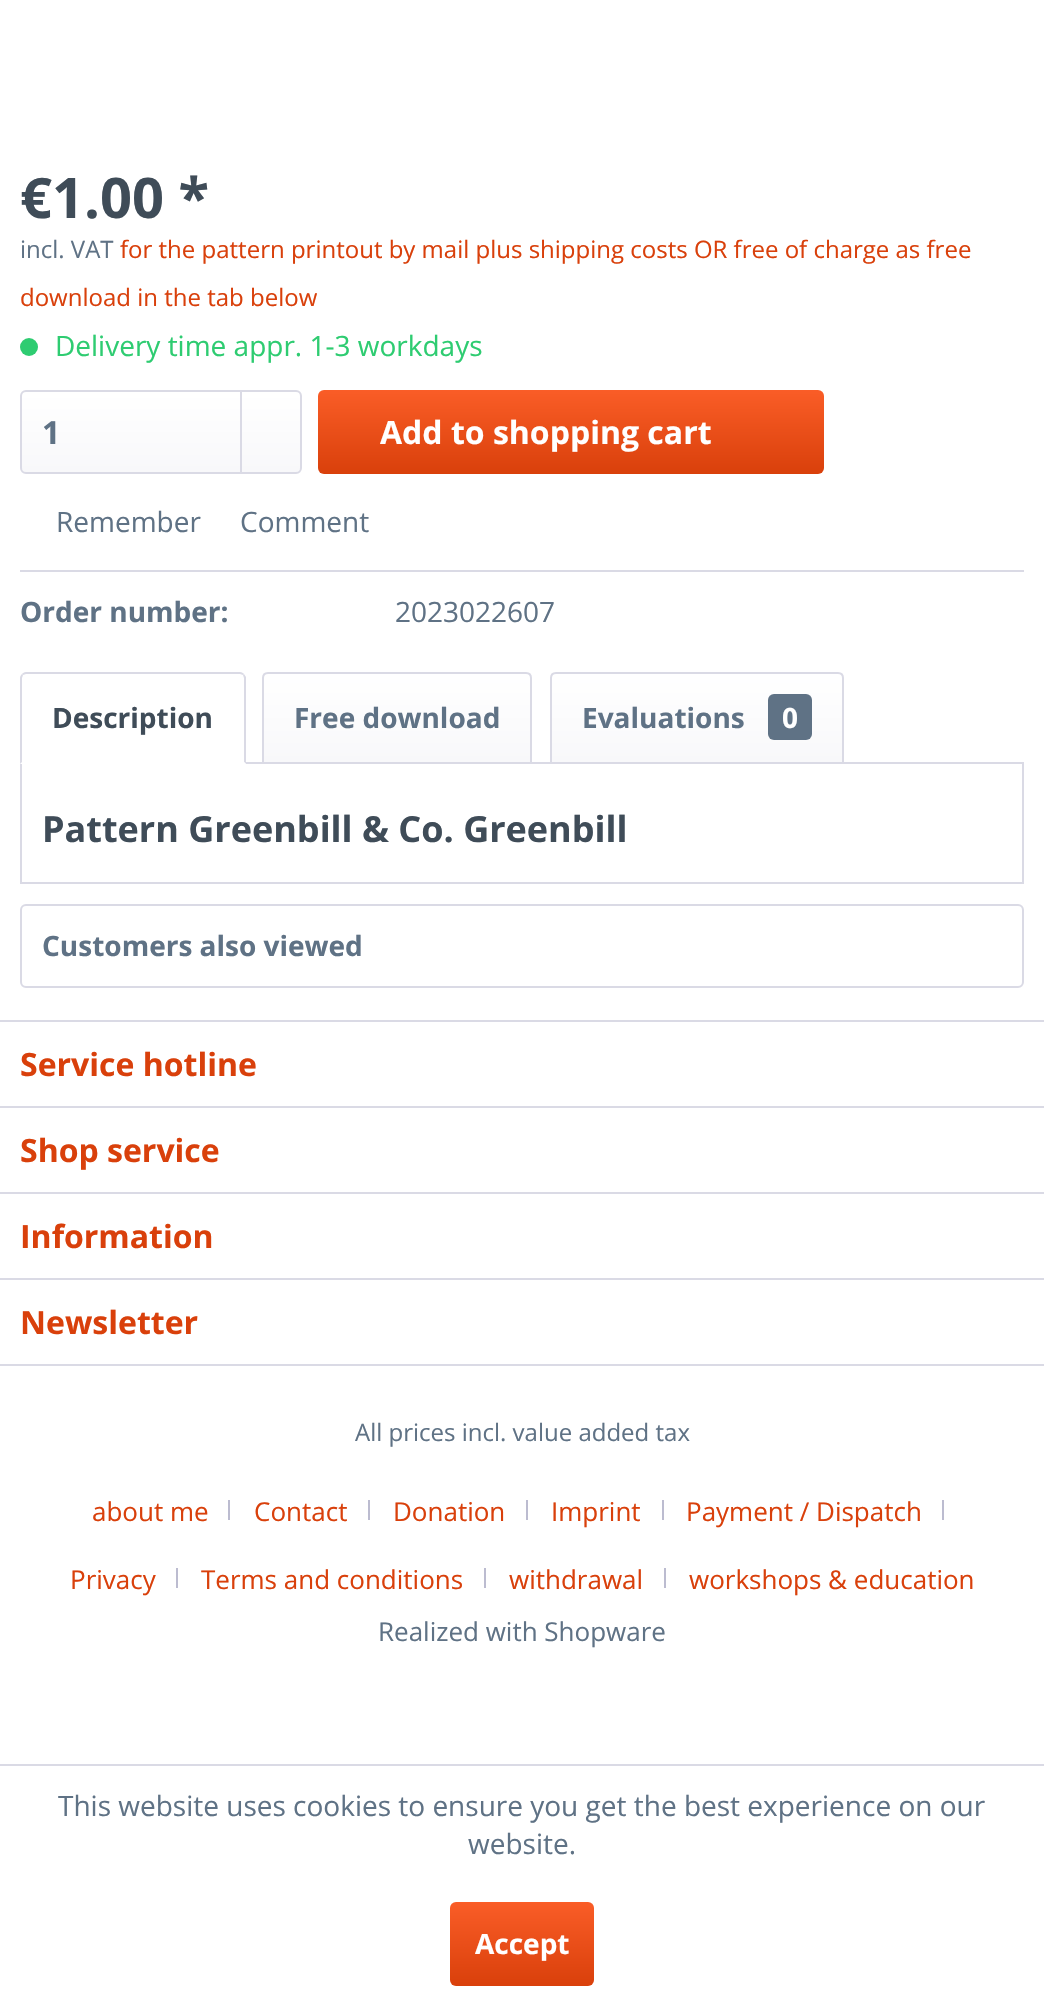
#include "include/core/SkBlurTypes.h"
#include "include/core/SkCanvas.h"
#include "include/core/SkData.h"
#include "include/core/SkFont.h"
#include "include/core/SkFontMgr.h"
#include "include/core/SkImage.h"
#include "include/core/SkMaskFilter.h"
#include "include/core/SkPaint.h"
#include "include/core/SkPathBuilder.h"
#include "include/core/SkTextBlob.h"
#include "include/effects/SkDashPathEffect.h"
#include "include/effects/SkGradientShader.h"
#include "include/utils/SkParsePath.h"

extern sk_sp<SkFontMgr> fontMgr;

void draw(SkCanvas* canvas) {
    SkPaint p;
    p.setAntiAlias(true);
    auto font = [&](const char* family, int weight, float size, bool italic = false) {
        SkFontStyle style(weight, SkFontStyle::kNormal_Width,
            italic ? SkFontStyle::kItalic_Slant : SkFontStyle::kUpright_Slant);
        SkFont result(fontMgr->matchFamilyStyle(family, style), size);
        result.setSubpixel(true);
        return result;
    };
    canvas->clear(0xFFFFFFFF);
    auto font1 = font("Open Sans", 700, 56);
    p.setColor(0xFF3F4C58);
    canvas->drawString("€1.00 *", 20, 218, font1, p);
    auto font2 = font("Open Sans", 400, 24);
    p.setColor(0xFF5F7285);
    canvas->drawString("incl. VAT", 20, 258, font2, p);
    p.setColor(0xFFD9400B);
    canvas->drawString("for the pattern printout by mail plus shipping costs OR free of charge as free", 120, 258, font2, p);
    canvas->drawString("download in the tab below", 20, 306, font2, p);
    p.setColor(0xFF2ECC71);
    canvas->drawCircle(29, 347, 9, p);
    auto font3 = font("Open Sans", 400, 28);
    canvas->drawString("Delivery time appr. 1-3 workdays", 55, 356, font3, p);
    {
        const SkColor colors[] = {0xFFFFFFFF, 0xFFF8F8FA};
        const float stops[] = {0, 1};
        const SkPoint ends[] = {{161, 392}, {161, 472}};
        p.setShader(SkGradientShader::MakeLinear(ends, colors, stops, 2, SkTileMode::kClamp));
        p.setAlpha(255);
    }
    canvas->drawRoundRect(SkRect::MakeLTRB(22, 392, 300, 472), 4, 4, p);
    p.setStyle(SkPaint::kStroke_Style);
    p.setStrokeWidth(2);
    p.setShader(nullptr);
    p.setColor(0xFFDADAE5);
    canvas->drawRoundRect(SkRect::MakeLTRB(21, 391, 301, 473), 5, 5, p);
    auto font4 = font("Open Sans", 700, 32);
    p.setStyle(SkPaint::kFill_Style);
    p.setColor(0xFF5F7285);
    canvas->drawString("1", 42, 444, font4, p);
    p.setColor(0xFFDADAE5);
    canvas->drawRect(SkRect::MakeLTRB(240, 392, 242, 472), p);
    {
        const SkColor colors[] = {0xFFFA5D27, 0xFFD9400B};
        const float stops[] = {0, 1};
        const SkPoint ends[] = {{571, 390}, {571, 474}};
        p.setShader(SkGradientShader::MakeLinear(ends, colors, stops, 2, SkTileMode::kClamp));
        p.setAlpha(255);
    }
    canvas->drawRoundRect(SkRect::MakeLTRB(318, 390, 824, 474), 6, 6, p);
    p.setShader(nullptr);
    p.setColor(0xFFFFFFFF);
    canvas->drawString("Add to shopping cart", 380, 444, font4, p);
    p.setColor(0xFFDADAE5);
    canvas->drawRect(SkRect::MakeLTRB(20, 570, 1024, 572), p);
    p.setColor(0xFF5F7285);
    canvas->drawString("Remember", 56, 532, font3, p);
    canvas->drawString("Comment", 240, 532, font3, p);
    auto font5 = font("Open Sans", 700, 28);
    canvas->drawString("Order number:", 20, 622, font5, p);
    canvas->drawString("2023022607", 395, 622, font3, p);
    p.setStyle(SkPaint::kStroke_Style);
    p.setColor(0xFFDADAE5);
    canvas->drawRect(SkRect::MakeLTRB(21, 763, 1023, 883), p);
    p.setStyle(SkPaint::kFill_Style);
    p.setColor(0xFFFFFFFF);
    canvas->drawPath(SkPathBuilder().moveTo(26, 672).lineTo(240, 672).cubicTo(243.5f, 672, 246, 674.5f, 246, 678).lineTo(246, 764).lineTo(20, 764).lineTo(20, 678).cubicTo(20, 674.5f, 22.5f, 672, 26, 672).close().detach(), p);
    p.setColor(0xFFDADAE5);
    canvas->drawPath(SkPathBuilder().moveTo(26, 672).cubicTo(24, 672, 23, 673, 22, 674).lineTo(23, 675).lineTo(26, 674).lineTo(240, 674).lineTo(243, 675).lineTo(244, 674).cubicTo(243, 673, 242, 672, 240, 672).close().detach(), p);
    canvas->drawPath(SkPathBuilder().moveTo(246, 764).lineTo(246, 677).lineTo(244, 674).lineTo(243, 675).lineTo(244, 678).lineTo(244, 762).close().detach(), p);
    p.setColor(0xFFFFFFFF);
    canvas->drawPath(SkPathBuilder().moveTo(246, 764).lineTo(244, 762).lineTo(22, 762).lineTo(20, 764).close().detach(), p);
    p.setColor(0xFFDADAE5);
    canvas->drawPath(SkPathBuilder().moveTo(20, 764).lineTo(22, 762).lineTo(22, 678).lineTo(23, 675).lineTo(22, 674).cubicTo(21, 675, 20, 676, 20, 678).close().detach(), p);
    p.setColor(0xFF3F4C58);
    canvas->drawString("Description", 52, 728, font5, p);
    {
        const SkColor colors[] = {0xFFFFFFFF, 0xFFF8F8FA};
        const float stops[] = {0, 1};
        const SkPoint ends[] = {{397, 674}, {397, 762}};
        p.setShader(SkGradientShader::MakeLinear(ends, colors, stops, 2, SkTileMode::kClamp));
        p.setAlpha(255);
    }
    canvas->drawPath(SkPathBuilder().moveTo(268, 674).lineTo(526, 674).cubicTo(528, 674, 530, 676, 530, 678).lineTo(530, 762).lineTo(264, 762).lineTo(264, 678).cubicTo(264, 676, 266, 674, 268, 674).close().detach(), p);
    p.setStyle(SkPaint::kStroke_Style);
    p.setShader(nullptr);
    p.setColor(0xFFDADAE5);
    canvas->drawPath(SkPathBuilder().moveTo(268, 673).lineTo(526, 673).cubicTo(529, 673, 531, 675, 531, 678).lineTo(531, 763).lineTo(263, 763).lineTo(263, 678).cubicTo(263, 675, 265, 673, 268, 673).close().detach(), p);
    p.setStyle(SkPaint::kFill_Style);
    p.setColor(0xFF5F7285);
    canvas->drawString("Free download", 294, 728, font5, p);
    {
        const SkColor colors[] = {0xFFFFFFFF, 0xFFF8F8FA};
        const float stops[] = {0, 1};
        const SkPoint ends[] = {{697, 674}, {697, 762}};
        p.setShader(SkGradientShader::MakeLinear(ends, colors, stops, 2, SkTileMode::kClamp));
        p.setAlpha(255);
    }
    canvas->drawPath(SkPathBuilder().moveTo(556, 674).lineTo(838, 674).cubicTo(840, 674, 842, 676, 842, 678).lineTo(842, 762).lineTo(552, 762).lineTo(552, 678).cubicTo(552, 676, 554, 674, 556, 674).close().detach(), p);
    p.setStyle(SkPaint::kStroke_Style);
    p.setShader(nullptr);
    p.setColor(0xFFDADAE5);
    canvas->drawPath(SkPathBuilder().moveTo(556, 673).lineTo(838, 673).cubicTo(841, 673, 843, 675, 843, 678).lineTo(843, 763).lineTo(551, 763).lineTo(551, 678).cubicTo(551, 675, 553, 673, 556, 673).close().detach(), p);
    p.setStyle(SkPaint::kFill_Style);
    p.setColor(0xFF5F7285);
    canvas->drawString("Evaluations", 582, 728, font5, p);
    canvas->drawRoundRect(SkRect::MakeLTRB(768, 694, 812, 740), 6, 6, p);
    p.setColor(0xFFFFFFFF);
    canvas->drawString("0", 782, 728, font5, p);
    auto font6 = font("Open Sans", 700, 36);
    p.setColor(0xFF3F4C58);
    canvas->drawString("Pattern Greenbill & Co. Greenbill", 42, 842, font6, p);
    p.setStyle(SkPaint::kStroke_Style);
    p.setColor(0xFFDADAE5);
    canvas->drawRoundRect(SkRect::MakeLTRB(21, 905, 1023, 987), 5, 5, p);
    p.setStyle(SkPaint::kFill_Style);
    p.setColor(0xFF5F7285);
    canvas->drawString("Customers also viewed", 42, 956, font5, p);
    p.setColor(0xFFDADAE5);
    canvas->drawRect(SkRect::MakeLTRB(0, 1020, 1044, 1022), p);
    p.setColor(0xFFD9400B);
    canvas->drawString("Service hotline", 20, 1076, font4, p);
    p.setColor(0xFFDADAE5);
    canvas->drawRect(SkRect::MakeLTRB(0, 1106, 1044, 1108), p);
    p.setColor(0xFFD9400B);
    canvas->drawString("Shop service", 20, 1162, font4, p);
    p.setColor(0xFFDADAE5);
    canvas->drawRect(SkRect::MakeLTRB(0, 1192, 1044, 1194), p);
    p.setColor(0xFFD9400B);
    canvas->drawString("Information", 20, 1248, font4, p);
    p.setColor(0xFFDADAE5);
    canvas->drawRect(SkRect::MakeLTRB(0, 1278, 1044, 1280), p);
    canvas->drawRect(SkRect::MakeLTRB(0, 1364, 1044, 1366), p);
    p.setColor(0xFFD9400B);
    canvas->drawString("Newsletter", 20, 1334, font4, p);
    p.setColor(0xFF5F7285);
    canvas->drawString("All prices incl. value added tax", 355, 1441, font2, p);
    auto font7 = font("Open Sans", 400, 26);
    p.setColor(0xFFD9400B);
    canvas->drawString("about me", 92, 1521, font7, p);
    p.setColor(0xFFBCBCD0);
    canvas->drawRect(SkRect::MakeLTRB(228, 1500, 230, 1520), p);
    p.setColor(0xFFD9400B);
    canvas->drawString("Contact", 254, 1521, font7, p);
    p.setColor(0xFFBCBCD0);
    canvas->drawRect(SkRect::MakeLTRB(368, 1500, 370, 1520), p);
    p.setColor(0xFFD9400B);
    canvas->drawString("Donation", 393, 1521, font7, p);
    p.setColor(0xFFBCBCD0);
    canvas->drawRect(SkRect::MakeLTRB(526, 1500, 528, 1520), p);
    p.setColor(0xFFD9400B);
    canvas->drawString("Imprint", 551, 1521, font7, p);
    p.setColor(0xFFBCBCD0);
    canvas->drawRect(SkRect::MakeLTRB(662, 1500, 664, 1520), p);
    p.setColor(0xFFD9400B);
    canvas->drawString("Payment / Dispatch", 686, 1521, font7, p);
    p.setColor(0xFFBCBCD0);
    canvas->drawRect(SkRect::MakeLTRB(942, 1500, 944, 1520), p);
    p.setColor(0xFFD9400B);
    canvas->drawString("Privacy", 70, 1589, font7, p);
    p.setColor(0xFFBCBCD0);
    canvas->drawRect(SkRect::MakeLTRB(176, 1568, 178, 1588), p);
    p.setColor(0xFFD9400B);
    canvas->drawString("Terms and conditions", 201, 1589, font7, p);
    p.setColor(0xFFBCBCD0);
    canvas->drawRect(SkRect::MakeLTRB(484, 1568, 486, 1588), p);
    p.setColor(0xFFD9400B);
    canvas->drawString("withdrawal", 509, 1589, font7, p);
    p.setColor(0xFFBCBCD0);
    canvas->drawRect(SkRect::MakeLTRB(664, 1568, 666, 1588), p);
    p.setColor(0xFFD9400B);
    canvas->drawString("workshops & education", 689, 1589, font7, p);
    p.setColor(0xFF5F7285);
    canvas->drawString("Realized with Shopware", 378, 1641, font7, p);
    p.setColor(0xFFDADAE5);
    canvas->drawRect(SkRect::MakeLTRB(0, 1764, 1044, 1766), p);
    p.setColor(0xFF5F7285);
    canvas->drawString("This website uses cookies to ensure you get the best experience on our", 58, 1816, font3, p);
    canvas->drawString("website.", 468, 1854, font3, p);
    {
        const SkColor colors[] = {0xFFFA5D27, 0xFFD9400B};
        const float stops[] = {0, 1};
        const SkPoint ends[] = {{522, 1902}, {522, 1986}};
        p.setShader(SkGradientShader::MakeLinear(ends, colors, stops, 2, SkTileMode::kClamp));
        p.setAlpha(255);
    }
    canvas->drawRoundRect(SkRect::MakeLTRB(450, 1902, 594, 1986), 6, 6, p);
    p.setShader(nullptr);
    p.setColor(0xFFFFFFFF);
    canvas->drawString("Accept", 475, 1954, font5, p);
}
